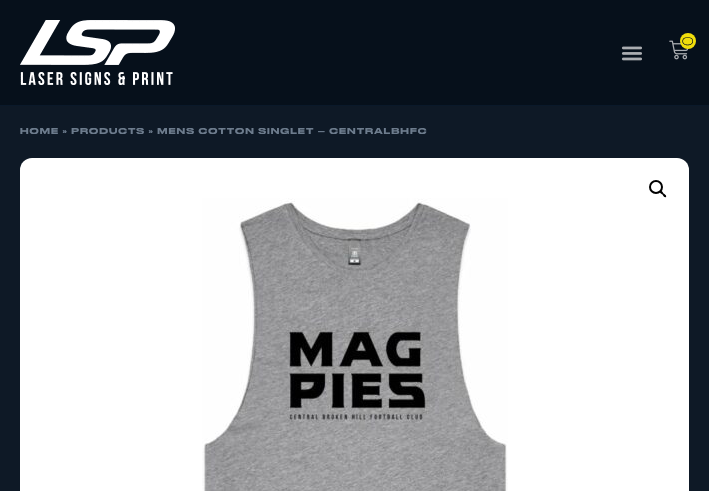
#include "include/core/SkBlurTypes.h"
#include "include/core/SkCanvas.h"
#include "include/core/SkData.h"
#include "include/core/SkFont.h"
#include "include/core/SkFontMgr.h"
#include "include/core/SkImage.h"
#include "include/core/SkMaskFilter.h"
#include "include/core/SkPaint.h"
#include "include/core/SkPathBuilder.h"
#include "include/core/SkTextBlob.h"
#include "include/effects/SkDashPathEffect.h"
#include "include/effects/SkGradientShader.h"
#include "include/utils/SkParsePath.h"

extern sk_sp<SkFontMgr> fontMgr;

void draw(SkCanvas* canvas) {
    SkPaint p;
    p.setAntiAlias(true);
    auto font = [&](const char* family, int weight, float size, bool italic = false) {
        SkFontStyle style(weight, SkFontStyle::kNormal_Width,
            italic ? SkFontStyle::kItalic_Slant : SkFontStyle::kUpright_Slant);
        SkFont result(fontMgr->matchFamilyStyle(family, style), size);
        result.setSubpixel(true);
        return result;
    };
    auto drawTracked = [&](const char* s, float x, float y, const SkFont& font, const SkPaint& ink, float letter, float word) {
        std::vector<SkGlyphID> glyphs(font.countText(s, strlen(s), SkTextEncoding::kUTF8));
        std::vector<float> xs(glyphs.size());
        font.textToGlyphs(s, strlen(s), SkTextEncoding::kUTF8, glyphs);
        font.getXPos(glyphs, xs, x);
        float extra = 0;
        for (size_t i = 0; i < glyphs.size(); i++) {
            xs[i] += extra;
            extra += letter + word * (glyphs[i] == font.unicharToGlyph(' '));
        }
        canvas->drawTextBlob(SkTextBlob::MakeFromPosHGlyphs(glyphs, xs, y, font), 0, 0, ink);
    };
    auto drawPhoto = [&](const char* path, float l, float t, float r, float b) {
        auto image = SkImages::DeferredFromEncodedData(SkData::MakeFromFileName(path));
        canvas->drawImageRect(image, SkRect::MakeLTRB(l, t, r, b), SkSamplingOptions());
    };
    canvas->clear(0xFF06101B);
    p.setColor(0xFF0A192A);
    canvas->drawRect(SkRect::MakeLTRB(0, 105, 709, 106), p);
    drawPhoto("media/1.png", 20, 20, 175, 85);
    drawPhoto("media/2.png", 669, 40, 689, 60);
    p.setColor(0xFFF1DE0B);
    canvas->drawCircle(688, 41, 8, p);
    auto font1 = font("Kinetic", 300, 10);
    p.setColor(0xFF06101B);
    canvas->drawString("0", 682, 45, font1, p);
    drawPhoto("media/3.png", 621, 46, 642, 61);
    p.setColor(0xFF0E1926);
    canvas->drawRect(SkRect::MakeLTRB(0, 106, 709, 491), p);
    auto font2 = font("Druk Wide", 500, 8);
    p.setColor(0xFF6D7C8D);
    drawTracked("HOME » PRODUCTS » MENS COTTON SINGLET – CENTRALBHFC", 20, 134, font2, p, 1, 0);
    p.setColor(0xFFFFFFFF);
    canvas->drawRoundRect(SkRect::MakeLTRB(20, 158, 689, 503), 12, 12, p);
    drawPhoto("media/4.png", 202, 198, 508, 491);
    p.setStyle(SkPaint::kStroke_Style);
    p.setStrokeWidth(2);
    p.setColor(0xFF000000);
    canvas->drawCircle(656, 187, 6, p);
    p.setStyle(SkPaint::kFill_Style);
    canvas->drawPath(SkPathBuilder().moveTo(660, 191).cubicTo(661.5f, 190, 663, 192.5f, 663.5f, 193.5f).cubicTo(664.5f, 194, 667, 195.5f, 666, 197).cubicTo(664.5f, 198, 663, 195.5f, 662.5f, 194.5f).cubicTo(661.5f, 194, 659, 192.5f, 660, 191).close().detach(), p);
}
